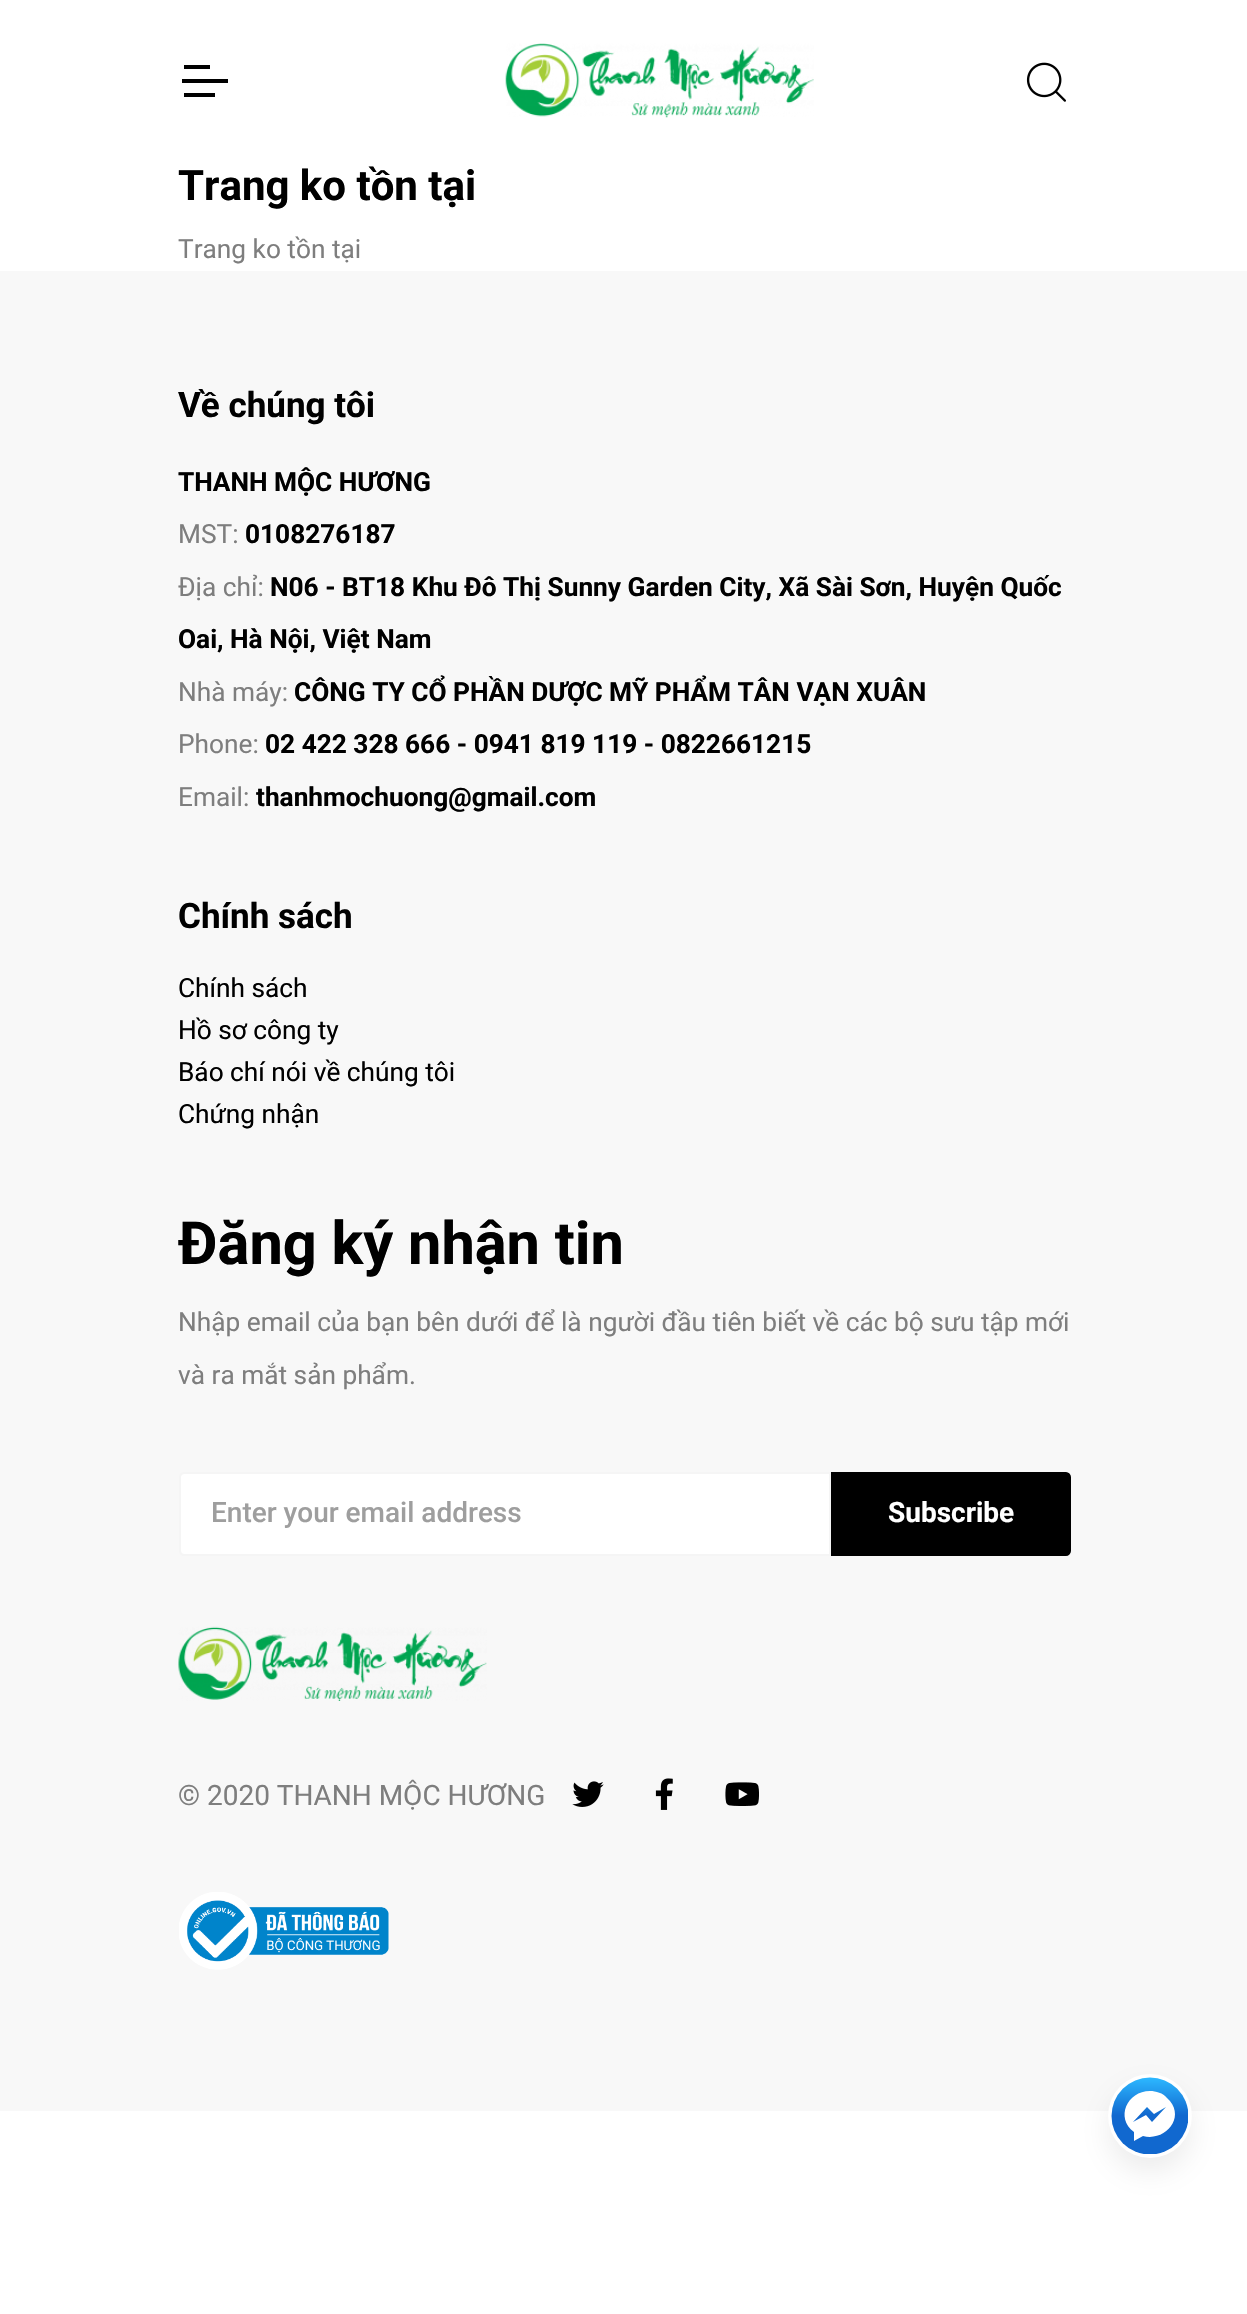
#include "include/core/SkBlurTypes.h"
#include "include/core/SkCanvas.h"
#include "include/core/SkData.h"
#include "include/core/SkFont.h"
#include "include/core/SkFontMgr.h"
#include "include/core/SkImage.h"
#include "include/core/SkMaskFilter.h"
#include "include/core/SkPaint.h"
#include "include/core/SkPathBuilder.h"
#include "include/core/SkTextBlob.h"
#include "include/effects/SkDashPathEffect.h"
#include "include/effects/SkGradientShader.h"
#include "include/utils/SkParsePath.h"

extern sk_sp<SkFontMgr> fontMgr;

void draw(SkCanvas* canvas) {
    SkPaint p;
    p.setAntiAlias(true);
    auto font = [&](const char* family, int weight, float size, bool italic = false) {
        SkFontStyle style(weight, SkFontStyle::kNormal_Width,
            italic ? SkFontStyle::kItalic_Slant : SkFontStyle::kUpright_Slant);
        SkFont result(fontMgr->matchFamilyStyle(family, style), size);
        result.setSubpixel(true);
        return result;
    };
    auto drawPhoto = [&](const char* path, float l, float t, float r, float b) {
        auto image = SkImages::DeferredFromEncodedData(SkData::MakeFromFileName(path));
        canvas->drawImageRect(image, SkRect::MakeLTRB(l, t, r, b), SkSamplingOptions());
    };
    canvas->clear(0xFFFFFFFF);
    {
        const struct { float l, t, r, b; SkColor color; } items[] = {
            {182, 79, 228, 83, 0xFF000000},
            {184, 65, 210, 69, 0xFF000000},
            {184, 93, 215, 97, 0xFF000000},
        };
        for (auto [l, t, r, b, color] : items) {
            p.setColor(color);
            canvas->drawRect(SkRect::MakeLTRB(l, t, r, b), p);
        }
    }
    drawPhoto("media/1.png", 505, 43, 814, 118);
    drawPhoto("media/2.png", 1026, 62, 1066, 102);
    auto font1 = font("Roboto", 700, 42);
    canvas->drawString("Trang ko tồn tại", 178, 200, font1, p);
    auto font2 = font("Roboto", 400, 26.25f);
    p.setColor(0xFF7E7E7E);
    canvas->drawString("Trang ko tồn tại", 178, 258, font2, p);
    p.setColor(0xFFF8F8F8);
    canvas->drawRect(SkRect::MakeLTRB(0, 271, 1247, 2111), p);
    auto font3 = font("Roboto", 700, 35);
    p.setColor(0xFF000000);
    canvas->drawString("Về chúng tôi", 178, 417, font3, p);
    auto font4 = font("Roboto", 700, 26.25f);
    canvas->drawString("THANH MỘC HƯƠNG", 178, 491, font4, p);
    p.setColor(0xFF7E7E7E);
    canvas->drawString("MST:", 178, 543, font2, p);
    p.setColor(0xFF000000);
    canvas->drawString("0108276187", 245, 543, font4, p);
    p.setColor(0xFF7E7E7E);
    canvas->drawString("Địa chỉ:", 178, 596, font2, p);
    p.setColor(0xFF000000);
    canvas->drawString("N06 - BT18 Khu Đô Thị Sunny Garden City, Xã Sài Sơn, Huyện Quốc", 270, 596, font4, p);
    canvas->drawString("Oai, Hà Nội, Việt Nam", 178, 648, font4, p);
    p.setColor(0xFF7E7E7E);
    canvas->drawString("Nhà máy:", 178, 701, font2, p);
    p.setColor(0xFF000000);
    canvas->drawString("CÔNG TY CỔ PHẦN DƯỢC MỸ PHẨM TÂN VẠN XUÂN", 294, 701, font4, p);
    p.setColor(0xFF7E7E7E);
    canvas->drawString("Phone:", 178, 753, font2, p);
    p.setColor(0xFF000000);
    canvas->drawString("02 422 328 666 - 0941 819 119 - 0822661215", 265, 753, font4, p);
    p.setColor(0xFF7E7E7E);
    canvas->drawString("Email:", 178, 806, font2, p);
    p.setColor(0xFF000000);
    canvas->drawString("thanhmochuong@gmail.com", 256, 806, font4, p);
    canvas->drawString("Chính sách", 178, 928, font3, p);
    {
        const struct { const char* s; float x, y; } items[] = {
            {"Chính sách", 178, 997},
            {"Hồ sơ công ty", 178, 1039},
            {"Báo chí nói về chúng tôi", 178, 1081},
            {"Chứng nhận", 178, 1123},
        };
        for (auto [s, x, y] : items) {
            canvas->drawString(s, x, y, font2, p);
        }
    }
    auto font5 = font("Roboto", 700, 59.5f);
    canvas->drawString("Đăng ký nhận tin", 178, 1264, font5, p);
    p.setColor(0xFF7E7E7E);
    canvas->drawString("Nhập email của bạn bên dưới để là người đầu tiên biết về các bộ sưu tập mới", 178, 1331, font2, p);
    canvas->drawString("và ra mắt sản phẩm.", 178, 1384, font2, p);
    p.setColor(0xFFFFFFFF);
    canvas->drawPath(SkPathBuilder().moveTo(184, 1473).lineTo(830, 1473).lineTo(830, 1555).lineTo(184, 1555).cubicTo(182, 1555, 180, 1553, 180, 1551).lineTo(180, 1477).cubicTo(180, 1475, 182, 1473, 184, 1473).close().detach(), p);
    p.setStyle(SkPaint::kStroke_Style);
    p.setStrokeWidth(2);
    p.setColor(0xFFF5F5F5);
    canvas->drawPath(SkPathBuilder().moveTo(184, 1473).lineTo(830, 1473).lineTo(830, 1555).lineTo(184, 1555).cubicTo(182, 1555, 180, 1553, 180, 1551).lineTo(180, 1477).cubicTo(180, 1475, 182, 1473, 184, 1473).close().detach(), p);
    auto font6 = font("Roboto", 500, 28);
    p.setStyle(SkPaint::kFill_Style);
    p.setColor(0xFF9E9E9E);
    canvas->drawString("Enter your email address", 211, 1522, font6, p);
    p.setColor(0xFF000000);
    canvas->drawPath(SkPathBuilder().moveTo(833, 1474).lineTo(1066, 1474).cubicTo(1067.5f, 1474, 1069, 1475.5f, 1069, 1477).lineTo(1069, 1551).cubicTo(1069, 1552.5f, 1067.5f, 1554, 1066, 1554).lineTo(833, 1554).close().detach(), p);
    p.setStyle(SkPaint::kStroke_Style);
    p.setStrokeWidth(4);
    canvas->drawPath(SkPathBuilder().moveTo(833, 1474).lineTo(1066, 1474).cubicTo(1067.5f, 1474, 1069, 1475.5f, 1069, 1477).lineTo(1069, 1551).cubicTo(1069, 1552.5f, 1067.5f, 1554, 1066, 1554).lineTo(833, 1554).close().detach(), p);
    auto font7 = font("Roboto", 700, 28);
    p.setStyle(SkPaint::kFill_Style);
    p.setColor(0xFFFFFFFF);
    canvas->drawString("Subscribe", 888, 1522, font7, p);
    drawPhoto("media/3.png", 178, 1626, 487, 1701);
    auto font8 = font("Roboto", 400, 28);
    p.setColor(0xFF7E7E7E);
    canvas->drawString("© 2020 THANH MỘC HƯƠNG", 178, 1805, font8, p);
    drawPhoto("media/4.png", 572, 1781, 604, 1807);
    drawPhoto("media/5.png", 655, 1778, 673, 1810);
    drawPhoto("media/6.png", 725, 1782, 759, 1806);
    drawPhoto("media/7.png", 179, 1892, 389, 1970);
    p.setColor(0x267E7E7E);
    p.setMaskFilter(SkMaskFilter::MakeBlur(kNormal_SkBlurStyle, 14));
    canvas->drawRoundRect(SkRect::MakeLTRB(1108, 2088, 1192, 2172), 42, 42, p);
    p.setMaskFilter(nullptr);
    p.setColor(0xFFFFFFFF);
    canvas->drawCircle(1150, 2116, 42, p);
    canvas->save();
    canvas->clipRect(SkRect::MakeLTRB(1111, 2077, 1188, 2154));
    {
        const SkColor colors[] = {0xFF1168CF, 0xFF2CB7FF};
        const float stops[] = {0.5f, 1};
        const SkPoint ends[] = {{1149, 2153}, {1149, 2078}};
        p.setShader(SkGradientShader::MakeLinear(ends, colors, stops, 2, SkTileMode::kClamp));
        p.setAlpha(255);
    }
    canvas->drawCircle(1150, 2116, 38.5f, p);
    canvas->restore();
    p.setShader(nullptr);
    p.setColor(0xFFFFFFFF);
    canvas->drawPath(SkPathBuilder(SkPathFillType::kEvenOdd).moveTo(1150, 2091).cubicTo(1127, 2091, 1115, 2118, 1134, 2132).lineTo(1134, 2141).lineTo(1143, 2136).cubicTo(1166, 2142, 1187, 2116, 1167, 2098).cubicTo(1163, 2093, 1156, 2091, 1150, 2091).close().moveTo(1152, 2122).lineTo(1146, 2115).lineTo(1133, 2122).lineTo(1147, 2107).lineTo(1154, 2114).lineTo(1166, 2107).close().detach(), p);
}
